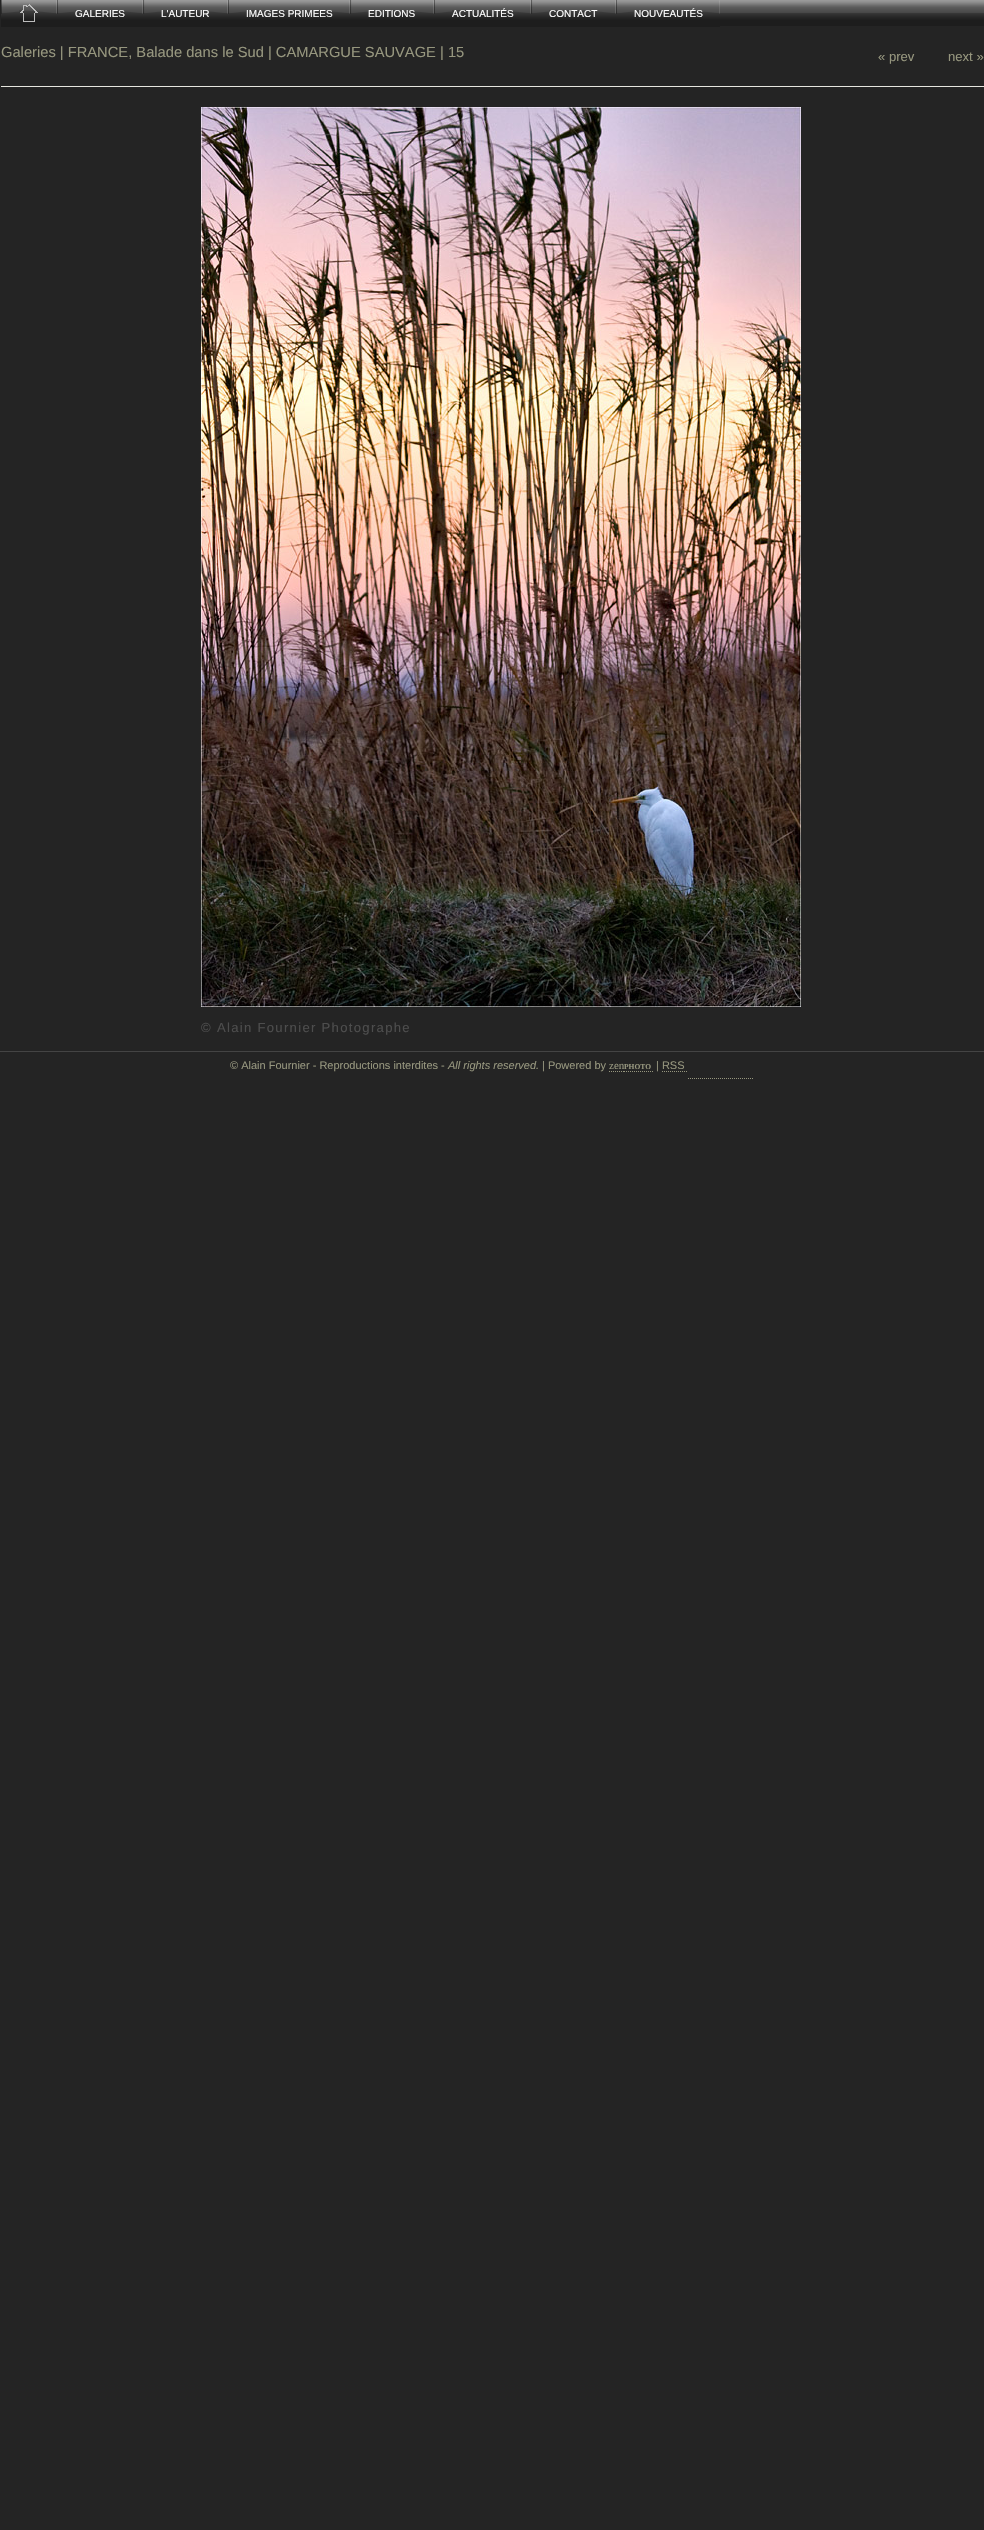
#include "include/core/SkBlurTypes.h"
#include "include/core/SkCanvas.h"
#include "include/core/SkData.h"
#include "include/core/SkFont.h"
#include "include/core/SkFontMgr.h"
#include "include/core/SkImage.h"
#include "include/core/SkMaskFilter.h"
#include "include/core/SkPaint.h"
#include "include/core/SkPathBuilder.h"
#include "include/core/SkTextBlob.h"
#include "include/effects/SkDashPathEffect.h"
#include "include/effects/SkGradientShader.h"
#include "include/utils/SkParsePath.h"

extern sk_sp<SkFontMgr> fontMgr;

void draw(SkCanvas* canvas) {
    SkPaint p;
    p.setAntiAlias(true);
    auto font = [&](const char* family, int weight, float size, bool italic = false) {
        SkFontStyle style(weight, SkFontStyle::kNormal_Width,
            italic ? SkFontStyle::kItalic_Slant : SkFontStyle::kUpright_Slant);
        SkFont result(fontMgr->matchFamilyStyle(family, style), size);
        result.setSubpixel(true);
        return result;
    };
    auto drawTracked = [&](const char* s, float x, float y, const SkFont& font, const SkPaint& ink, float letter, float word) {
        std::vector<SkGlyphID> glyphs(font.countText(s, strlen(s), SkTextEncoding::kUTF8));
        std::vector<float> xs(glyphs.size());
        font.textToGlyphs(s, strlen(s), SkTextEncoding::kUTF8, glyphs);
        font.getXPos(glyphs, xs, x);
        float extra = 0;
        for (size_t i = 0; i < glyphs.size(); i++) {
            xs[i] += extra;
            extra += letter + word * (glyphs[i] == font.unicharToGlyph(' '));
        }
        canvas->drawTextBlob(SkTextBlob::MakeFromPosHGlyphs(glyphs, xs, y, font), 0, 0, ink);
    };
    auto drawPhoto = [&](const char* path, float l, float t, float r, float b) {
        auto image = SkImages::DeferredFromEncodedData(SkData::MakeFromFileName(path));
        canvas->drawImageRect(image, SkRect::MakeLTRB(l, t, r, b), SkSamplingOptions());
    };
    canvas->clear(0xFF242424);
    p.setColor(0xFF444444);
    canvas->drawRect(SkRect::MakeLTRB(0, 1051, 984, 1052), p);
    drawPhoto("media/1.png", 720, 0, 984, 26);
    drawPhoto("media/2.png", 1, 0, 57, 27);
    drawPhoto("media/3.png", 19, 0, 57, 14);
    drawPhoto("media/4.png", 20, 4, 38, 22);
    drawPhoto("media/5.png", 57, 0, 143, 27);
    drawPhoto("media/6.png", 75, 0, 143, 14);
    auto font1 = font("Liberation Sans", 400, 10);
    p.setColor(0xFFFFFFFF);
    canvas->drawString("GALERIES", 75, 17, font1, p);
    drawPhoto("media/7.png", 143, 0, 228, 27);
    drawPhoto("media/8.png", 161, 0, 228, 14);
    canvas->drawString("L'AUTEUR", 161, 17, font1, p);
    drawPhoto("media/9.png", 228, 0, 350, 27);
    drawPhoto("media/10.png", 246, 0, 350, 14);
    canvas->drawString("IMAGES PRIMEES", 246, 17, font1, p);
    drawPhoto("media/11.png", 350, 0, 434, 27);
    drawPhoto("media/12.png", 368, 0, 434, 14);
    canvas->drawString("EDITIONS", 368, 17, font1, p);
    drawPhoto("media/13.png", 434, 0, 531, 27);
    drawPhoto("media/14.png", 452, 0, 531, 14);
    canvas->drawString("ACTUALITÉS", 452, 17, font1, p);
    drawPhoto("media/7.png", 531, 0, 616, 27);
    drawPhoto("media/8.png", 549, 0, 616, 14);
    canvas->drawString("CONTACT", 549, 17, font1, p);
    drawPhoto("media/15.png", 616, 0, 720, 27);
    drawPhoto("media/16.png", 634, 0, 720, 14);
    canvas->drawString("NOUVEAUTÉS", 634, 17, font1, p);
    p.setColor(0xFFE6E6DF);
    canvas->drawRect(SkRect::MakeLTRB(1, 86, 984, 87), p);
    auto font2 = font("Liberation Sans", 400, 14.7f);
    p.setColor(0xFF96967E);
    canvas->drawString("Galeries | FRANCE, Balade dans le Sud | CAMARGUE SAUVAGE | 15", 1, 57, font2, p);
    auto font3 = font("Liberation Sans", 400, 13.1f);
    canvas->drawString("« prev", 878, 61, font3, p);
    canvas->drawString("next »", 948, 61, font3, p);
    drawPhoto("media/17.png", 201, 107, 801, 1007);
    p.setColor(0xFF4D4D4D);
    drawTracked("© Alain Fournier Photographe", 201, 1032, font3, p, 1.3f, 0);
    auto font4 = font("Liberation Sans", 400, 11);
    p.setColor(0xFF96967E);
    canvas->drawString("© Alain Fournier - Reproductions interdites -", 230, 1069, font4, p);
    auto font5 = font("Liberation Sans", 400, 11, true);
    canvas->drawString("All rights reserved.", 448, 1069, font5, p);
    canvas->drawString("| Powered by", 542, 1069, font4, p);
    auto font6 = font("Liberation Serif", 400, 11);
    canvas->drawString("zen", 609, 1069, font6, p);
    p.setStyle(SkPaint::kStroke_Style);
    p.setStrokeWidth(1);
    p.setPathEffect(SkDashPathEffect::Make({{1, 1}}, 0));
    canvas->drawPath(SkPathBuilder().moveTo(609, 1071.5f).lineTo(624, 1071.5f).moveTo(624, 1071.5f).lineTo(653, 1071.5f).detach(), p);
    p.setPathEffect(nullptr);
    auto font7 = font("Liberation Serif", 700, 7.5f);
    p.setStyle(SkPaint::kFill_Style);
    canvas->drawString("PHOTO", 624, 1069, font7, p);
    canvas->drawString("| RSS", 656, 1069, font4, p);
    p.setStyle(SkPaint::kStroke_Style);
    p.setPathEffect(SkDashPathEffect::Make({{1, 1}}, 0));
    canvas->drawPath(SkPathBuilder().moveTo(662, 1071.5f).lineTo(688, 1071.5f).detach(), p);
    p.setPathEffect(nullptr);
    p.setPathEffect(SkDashPathEffect::Make({{1, 1}}, 0));
    canvas->drawPath(SkPathBuilder().moveTo(688, 1078.5f).lineTo(754, 1078.5f).detach(), p);
    p.setPathEffect(nullptr);
}
